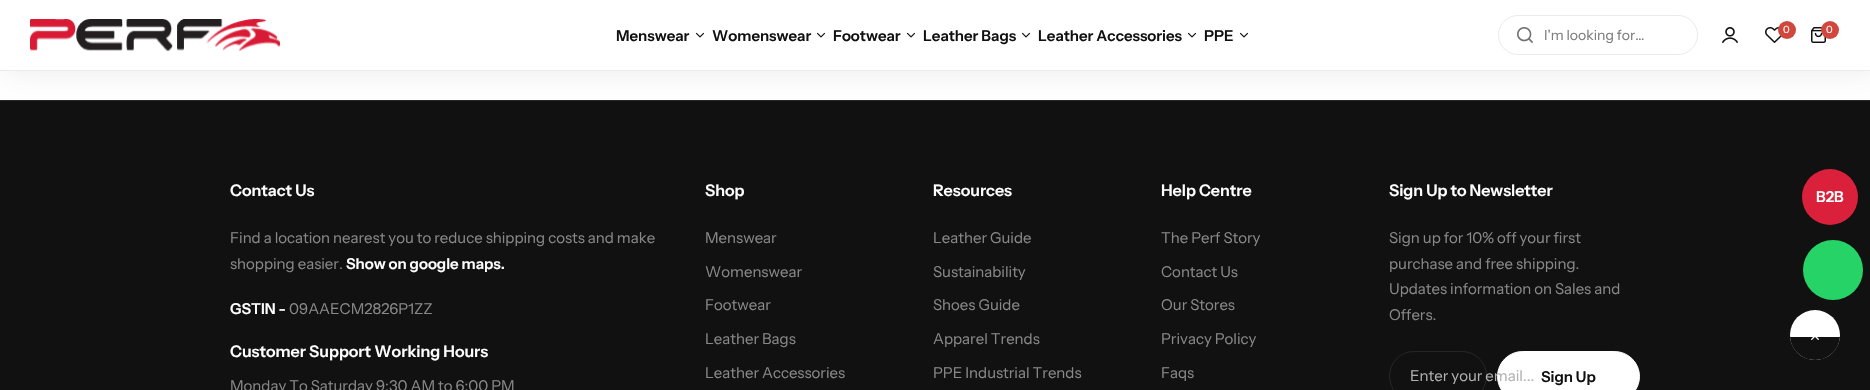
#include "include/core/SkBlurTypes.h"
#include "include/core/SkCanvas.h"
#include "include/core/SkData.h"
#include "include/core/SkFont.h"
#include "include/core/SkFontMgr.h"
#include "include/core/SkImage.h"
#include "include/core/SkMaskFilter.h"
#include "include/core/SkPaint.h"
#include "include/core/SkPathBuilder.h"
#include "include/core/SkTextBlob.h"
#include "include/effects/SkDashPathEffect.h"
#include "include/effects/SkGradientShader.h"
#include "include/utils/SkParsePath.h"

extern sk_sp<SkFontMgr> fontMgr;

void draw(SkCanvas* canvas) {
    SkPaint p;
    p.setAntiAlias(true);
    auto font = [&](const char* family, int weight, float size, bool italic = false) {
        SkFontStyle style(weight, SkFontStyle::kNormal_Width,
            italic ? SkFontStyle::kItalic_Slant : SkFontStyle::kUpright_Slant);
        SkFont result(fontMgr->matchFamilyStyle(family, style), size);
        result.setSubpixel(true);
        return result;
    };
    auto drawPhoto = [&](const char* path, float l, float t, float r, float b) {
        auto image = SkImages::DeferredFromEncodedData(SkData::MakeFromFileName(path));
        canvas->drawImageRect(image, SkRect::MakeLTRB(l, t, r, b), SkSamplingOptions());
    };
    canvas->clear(0xFFFFFFFF);
    p.setColor(0xFF111111);
    canvas->drawRect(SkRect::MakeLTRB(0, 101, 1870, 390), p);
    p.setColor(0xFF252525);
    canvas->drawRect(SkRect::MakeLTRB(0, 100, 1870, 101), p);
    p.setColor(0x14000000);
    p.setMaskFilter(SkMaskFilter::MakeBlur(kNormal_SkBlurStyle, 15));
    canvas->drawRect(SkRect::MakeLTRB(5, 0, 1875, 71), p);
    p.setMaskFilter(nullptr);
    p.setColor(0xFFEBEBEB);
    canvas->drawRect(SkRect::MakeLTRB(0, 70, 1870, 71), p);
    p.setColor(0xFFFFFFFF);
    canvas->drawRect(SkRect::MakeLTRB(0, 0, 1870, 70), p);
    drawPhoto("media/1.png", 30, 19, 280, 51);
    auto font1 = font("Instrument Sans", 600, 15);
    p.setColor(0xFF111111);
    canvas->drawString("Menswear", 616, 41, font1, p);
    drawPhoto("media/2.png", 696, 32, 704, 38);
    canvas->drawString("Womenswear", 712, 41, font1, p);
    drawPhoto("media/2.png", 817, 32, 825, 38);
    canvas->drawString("Footwear", 833, 41, font1, p);
    drawPhoto("media/2.png", 907, 32, 915, 38);
    canvas->drawString("Leather Bags", 923, 41, font1, p);
    drawPhoto("media/2.png", 1022, 32, 1030, 38);
    canvas->drawString("Leather Accessories", 1038, 41, font1, p);
    drawPhoto("media/2.png", 1188, 32, 1196, 38);
    canvas->drawString("PPE", 1204, 41, font1, p);
    drawPhoto("media/2.png", 1240, 32, 1248, 38);
    p.setStyle(SkPaint::kStroke_Style);
    p.setStrokeWidth(1);
    p.setColor(0xFFEBEBEB);
    canvas->drawRoundRect(SkRect::MakeLTRB(1498.5f, 15.5f, 1697.5f, 54.5f), 19.5f, 19.5f, p);
    drawPhoto("media/3.png", 1517, 27, 1533, 43);
    auto font2 = font("Instrument Sans", 400, 14);
    p.setStyle(SkPaint::kFill_Style);
    p.setColor(0xFF7C7C7C);
    canvas->drawString("I'm looking for…", 1544, 40, font2, p);
    drawPhoto("media/4.png", 1722, 27, 1738, 43);
    drawPhoto("media/5.png", 1765, 27, 1782, 43);
    p.setColor(0xFFD0473E);
    canvas->drawCircle(1787, 30, 9, p);
    auto font3 = font("Instrument Sans", 400, 10);
    p.setColor(0xFFFFFFFF);
    canvas->drawString("0", 1783, 33, font3, p);
    drawPhoto("media/6.png", 1811, 27, 1826, 43);
    p.setColor(0xFFD0473E);
    canvas->drawCircle(1830, 30, 9, p);
    p.setColor(0xFFFFFFFF);
    canvas->drawString("0", 1826, 33, font3, p);
    auto font4 = font("Instrument Sans", 600, 16);
    canvas->drawString("Contact Us", 230, 196, font4, p);
    auto font5 = font("Instrument Sans", 400, 15);
    p.setColor(0xFF888888);
    canvas->drawString("Find a location nearest you to reduce shipping costs and make", 230, 243, font5, p);
    canvas->drawString("shopping easier.", 230, 269, font5, p);
    p.setColor(0xFFFFFFFF);
    canvas->drawString("Show on google maps.", 346, 269, font1, p);
    canvas->drawString("GSTIN -", 230, 314, font1, p);
    p.setColor(0xFF888888);
    canvas->drawString("09AAECM2826P1ZZ", 289, 314, font5, p);
    p.setColor(0xFFFFFFFF);
    canvas->drawString("Customer Support Working Hours", 230, 357, font4, p);
    p.setColor(0xFF888888);
    canvas->drawString("Monday To Saturday 9:30 AM to 6:00 PM", 230, 391, font5, p);
    p.setColor(0xFFFFFFFF);
    canvas->drawString("Shop", 705, 196, font4, p);
    p.setColor(0xFF888888);
    {
        const struct { const char* s; float x, y; } items[] = {
            {"Menswear", 705, 243},
            {"Womenswear", 705, 277},
            {"Footwear", 705, 310},
            {"Leather Bags", 705, 344},
            {"Leather Accessories", 705, 378},
        };
        for (auto [s, x, y] : items) {
            canvas->drawString(s, x, y, font5, p);
        }
    }
    p.setColor(0xFFFFFFFF);
    canvas->drawString("Resources", 933, 196, font4, p);
    p.setColor(0xFF888888);
    {
        const struct { const char* s; float x, y; } items[] = {
            {"Leather Guide", 933, 243},
            {"Sustainability", 933, 277},
            {"Shoes Guide", 933, 310},
            {"Apparel Trends", 933, 344},
            {"PPE Industrial Trends", 933, 378},
        };
        for (auto [s, x, y] : items) {
            canvas->drawString(s, x, y, font5, p);
        }
    }
    p.setColor(0xFFFFFFFF);
    canvas->drawString("Help Centre", 1161, 196, font4, p);
    p.setColor(0xFF888888);
    {
        const struct { const char* s; float x, y; } items[] = {
            {"The Perf Story", 1161, 243},
            {"Contact Us", 1161, 277},
            {"Our Stores", 1161, 310},
            {"Privacy Policy", 1161, 344},
            {"Faqs", 1161, 378},
        };
        for (auto [s, x, y] : items) {
            canvas->drawString(s, x, y, font5, p);
        }
    }
    p.setColor(0xFFFFFFFF);
    canvas->drawString("Sign Up to Newsletter", 1389, 196, font4, p);
    p.setColor(0xFF888888);
    {
        const struct { const char* s; float x, y; } items[] = {
            {"Sign up for 10% off your first", 1389, 243},
            {"purchase and free shipping.", 1389, 269},
            {"Updates information on Sales and", 1389, 294},
            {"Offers.", 1389, 320},
        };
        for (auto [s, x, y] : items) {
            canvas->drawString(s, x, y, font5, p);
        }
    }
    p.setStyle(SkPaint::kStroke_Style);
    p.setColor(0xFF252525);
    canvas->drawRoundRect(SkRect::MakeLTRB(1389.5f, 351.5f, 1486.5f, 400.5f), 24.5f, 24.5f, p);
    p.setStyle(SkPaint::kFill_Style);
    p.setColor(0xFFFFFFFF);
    canvas->drawRoundRect(SkRect::MakeLTRB(1497.5f, 351.5f, 1639.5f, 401.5f), 25, 25, p);
    p.setStyle(SkPaint::kStroke_Style);
    canvas->drawRoundRect(SkRect::MakeLTRB(1497.5f, 351.5f, 1639.5f, 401.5f), 25, 25, p);
    p.setStyle(SkPaint::kFill_Style);
    p.setColor(0xFFB0B0B0);
    canvas->drawString("Enter your email...", 1410, 381, font5, p);
    p.setColor(0xFF111111);
    canvas->drawString("Sign Up", 1541, 382, font1, p);
    p.setColor(0xFFFFFFFF);
    canvas->drawCircle(1815, 335, 25, p);
    canvas->save();
    canvas->clipPath(SkPathBuilder().moveTo(1815, 310).cubicTo(1829, 310, 1840, 321, 1840, 335).cubicTo(1840, 349, 1829, 360, 1815, 360).cubicTo(1801, 360, 1790, 349, 1790, 335).cubicTo(1790, 321, 1801, 310, 1815, 310).close().detach(), true);
    p.setColor(0xFF111111);
    canvas->drawRect(SkRect::MakeLTRB(1790, 337, 1840, 360), p);
    canvas->restore();
    drawPhoto("media/7.png", 1811, 337, 1819, 340);
    p.setColor(0xFFDA203A);
    canvas->drawCircle(1830, 197, 28, p);
    p.setColor(0xFFFFFFFF);
    canvas->drawString("B2B", 1816, 202, font1, p);
    p.setColor(0xFF25D366);
    canvas->drawCircle(1833, 270, 30, p);
}
